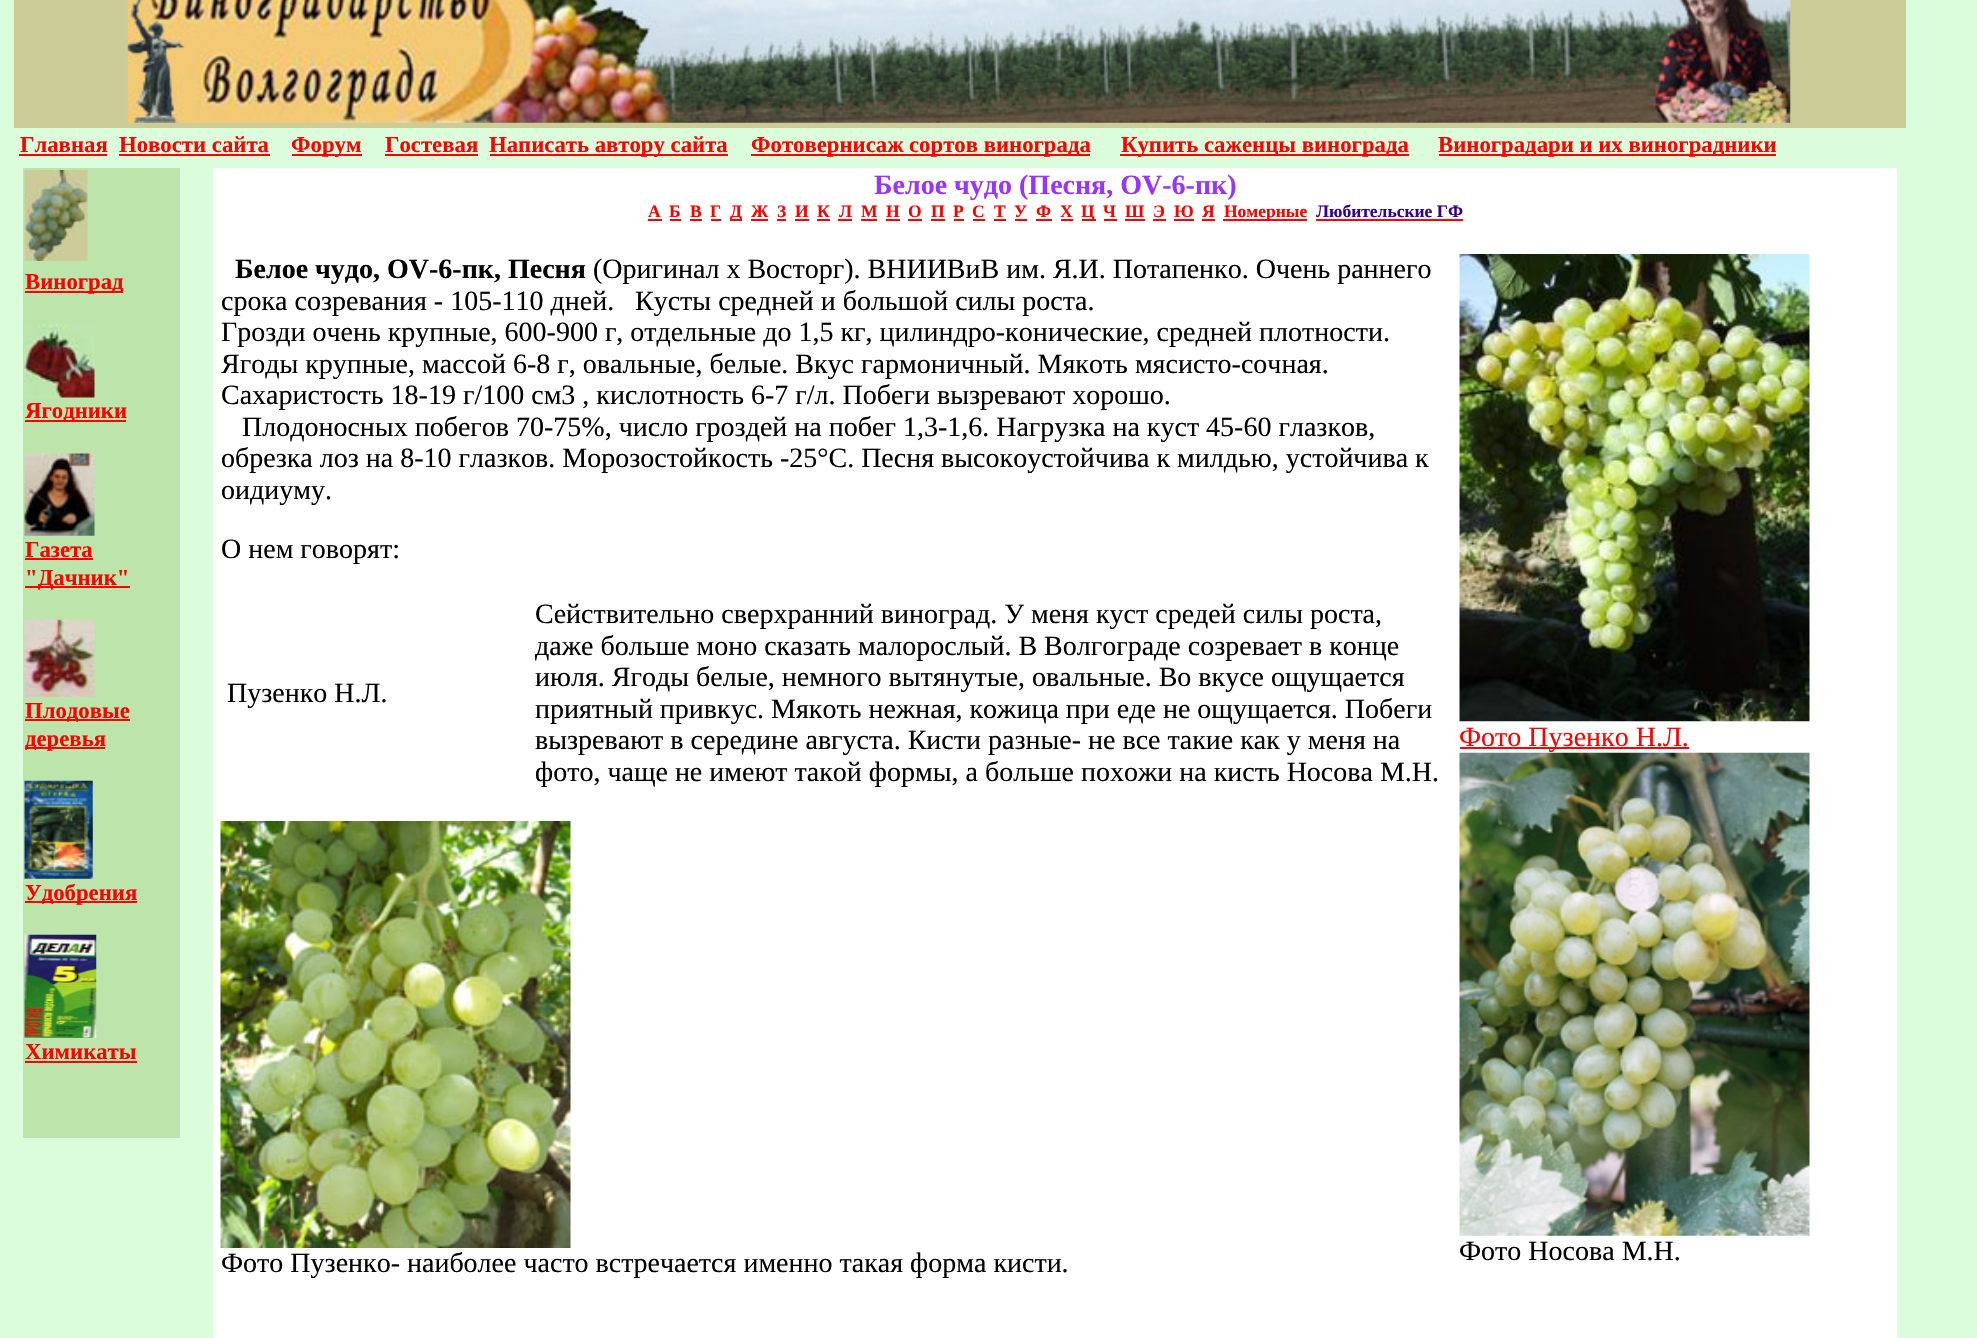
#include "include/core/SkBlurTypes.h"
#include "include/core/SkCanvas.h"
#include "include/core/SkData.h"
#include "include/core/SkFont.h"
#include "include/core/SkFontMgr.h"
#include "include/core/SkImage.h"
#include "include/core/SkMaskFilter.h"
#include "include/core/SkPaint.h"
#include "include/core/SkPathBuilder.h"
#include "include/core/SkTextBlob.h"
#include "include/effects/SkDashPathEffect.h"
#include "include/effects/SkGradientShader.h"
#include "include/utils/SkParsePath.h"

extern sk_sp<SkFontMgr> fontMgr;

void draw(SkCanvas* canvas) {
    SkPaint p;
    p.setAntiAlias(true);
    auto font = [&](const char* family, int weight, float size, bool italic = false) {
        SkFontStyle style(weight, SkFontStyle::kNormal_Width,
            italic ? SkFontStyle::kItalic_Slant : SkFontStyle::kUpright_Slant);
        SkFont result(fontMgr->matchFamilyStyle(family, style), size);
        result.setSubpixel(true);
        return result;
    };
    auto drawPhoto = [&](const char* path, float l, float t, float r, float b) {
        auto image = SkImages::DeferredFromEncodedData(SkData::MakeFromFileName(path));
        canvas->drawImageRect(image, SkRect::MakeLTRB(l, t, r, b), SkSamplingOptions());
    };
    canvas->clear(0xFFDBFDDB);
    p.setColor(0xFFCCCC99);
    canvas->drawRect(SkRect::MakeLTRB(14, 0, 1906, 128), p);
    drawPhoto("media/1.png", 127, 0, 1791, 123);
    auto font1 = font("Liberation Serif", 700, 22.75f);
    p.setColor(0xFFFF0000);
    canvas->drawString("Главная", 20, 152, font1, p);
    canvas->drawRect(SkRect::MakeLTRB(19, 154, 107, 156), p);
    canvas->drawString("Новости сайта", 119, 152, font1, p);
    canvas->drawRect(SkRect::MakeLTRB(119, 154, 270, 156), p);
    canvas->drawRect(SkRect::MakeLTRB(292, 154, 362, 156), p);
    canvas->drawString("Форум", 291, 152, font1, p);
    canvas->drawString("Гостевая", 385, 152, font1, p);
    canvas->drawRect(SkRect::MakeLTRB(385, 154, 478, 156), p);
    canvas->drawRect(SkRect::MakeLTRB(490, 154, 728, 156), p);
    canvas->drawString("Написать автору сайта", 489, 152, font1, p);
    canvas->drawRect(SkRect::MakeLTRB(751, 154, 903, 156), p);
    canvas->drawString("Фотовернисаж", 751, 152, font1, p);
    canvas->drawRect(SkRect::MakeLTRB(903, 154, 1090, 156), p);
    canvas->drawString("сортов винограда", 909, 152, font1, p);
    canvas->drawRect(SkRect::MakeLTRB(1120, 154, 1409, 156), p);
    canvas->drawString("Купить саженцы винограда", 1121, 152, font1, p);
    canvas->drawRect(SkRect::MakeLTRB(1439, 154, 1776, 156), p);
    canvas->drawString("Виноградари и их виноградники", 1438, 152, font1, p);
    p.setColor(0xFFBDE4AB);
    canvas->drawRect(SkRect::MakeLTRB(23, 168, 180, 1138), p);
    drawPhoto("media/2.png", 24, 170, 88, 261);
    p.setColor(0xFFFF0000);
    canvas->drawRect(SkRect::MakeLTRB(25, 291, 123, 293), p);
    canvas->drawString("Виноград", 25, 289, font1, p);
    drawPhoto("media/3.png", 24, 324, 95, 398);
    canvas->drawRect(SkRect::MakeLTRB(25, 420, 126, 422), p);
    canvas->drawString("Ягодники", 25, 418, font1, p);
    drawPhoto("media/4.png", 24, 453, 95, 536);
    canvas->drawString("Газета", 25, 557, font1, p);
    canvas->drawRect(SkRect::MakeLTRB(25, 558, 93, 560), p);
    canvas->drawRect(SkRect::MakeLTRB(25, 586, 130, 588), p);
    canvas->drawString("\"Дачник\"", 25, 585, font1, p);
    drawPhoto("media/5.png", 24, 619, 95, 697);
    canvas->drawRect(SkRect::MakeLTRB(25, 719, 130, 721), p);
    canvas->drawString("Плодовые", 25, 718, font1, p);
    canvas->drawRect(SkRect::MakeLTRB(25, 747, 105, 749), p);
    canvas->drawString("деревья", 25, 746, font1, p);
    drawPhoto("media/6.png", 24, 780, 93, 879);
    canvas->drawRect(SkRect::MakeLTRB(25, 901, 137, 903), p);
    canvas->drawString("Удобрения", 25, 900, font1, p);
    drawPhoto("media/7.png", 24, 934, 97, 1038);
    canvas->drawString("Химикаты", 25, 1059, font1, p);
    canvas->drawRect(SkRect::MakeLTRB(25, 1061, 137, 1063), p);
    p.setColor(0xFFFFFFFF);
    canvas->drawRect(SkRect::MakeLTRB(213, 168, 1897, 1338), p);
    auto font2 = font("Liberation Serif", 700, 28);
    p.setColor(0xFF9933FF);
    canvas->drawString("Белое чудо (Песня, OV-6-пк)", 874, 194, font2, p);
    auto font3 = font("Liberation Serif", 700, 17.5f);
    p.setColor(0xFFFF0000);
    canvas->drawString("А", 648, 217, font3, p);
    canvas->drawRect(SkRect::MakeLTRB(648, 219, 662, 221), p);
    canvas->drawString("Б", 669, 217, font3, p);
    canvas->drawRect(SkRect::MakeLTRB(670, 219, 681, 221), p);
    canvas->drawString("В", 690, 217, font3, p);
    canvas->drawRect(SkRect::MakeLTRB(690, 219, 702, 221), p);
    canvas->drawString("Г", 710, 217, font3, p);
    canvas->drawRect(SkRect::MakeLTRB(711, 219, 721, 221), p);
    canvas->drawRect(SkRect::MakeLTRB(730, 219, 742, 221), p);
    canvas->drawString("Д", 730, 217, font3, p);
    canvas->drawString("Ж", 751, 217, font3, p);
    canvas->drawRect(SkRect::MakeLTRB(751, 219, 768, 221), p);
    canvas->drawString("З", 777, 217, font3, p);
    canvas->drawRect(SkRect::MakeLTRB(777, 219, 786, 221), p);
    canvas->drawString("И", 795, 217, font3, p);
    canvas->drawRect(SkRect::MakeLTRB(795, 219, 809, 221), p);
    canvas->drawString("К", 817, 217, font3, p);
    canvas->drawRect(SkRect::MakeLTRB(817, 219, 830, 221), p);
    canvas->drawString("Л", 839, 217, font3, p);
    canvas->drawRect(SkRect::MakeLTRB(838, 219, 852, 221), p);
    canvas->drawString("М", 861, 217, font3, p);
    canvas->drawRect(SkRect::MakeLTRB(861, 219, 877, 221), p);
    canvas->drawString("Н", 886, 217, font3, p);
    canvas->drawRect(SkRect::MakeLTRB(886, 219, 900, 221), p);
    canvas->drawString("О", 908, 217, font3, p);
    canvas->drawRect(SkRect::MakeLTRB(908, 219, 922, 221), p);
    canvas->drawString("П", 931, 217, font3, p);
    canvas->drawRect(SkRect::MakeLTRB(931, 219, 945, 221), p);
    canvas->drawString("Р", 953, 217, font3, p);
    canvas->drawRect(SkRect::MakeLTRB(954, 219, 964, 221), p);
    canvas->drawString("С", 972, 217, font3, p);
    canvas->drawRect(SkRect::MakeLTRB(973, 219, 985, 221), p);
    canvas->drawString("Т", 994, 217, font3, p);
    canvas->drawRect(SkRect::MakeLTRB(994, 219, 1006, 221), p);
    canvas->drawString("У", 1014, 217, font3, p);
    canvas->drawRect(SkRect::MakeLTRB(1015, 219, 1027, 221), p);
    canvas->drawString("Ф", 1036, 217, font3, p);
    canvas->drawRect(SkRect::MakeLTRB(1036, 219, 1052, 221), p);
    canvas->drawString("Х", 1060, 217, font3, p);
    canvas->drawRect(SkRect::MakeLTRB(1061, 219, 1073, 221), p);
    canvas->drawRect(SkRect::MakeLTRB(1082, 219, 1096, 221), p);
    canvas->drawString("Ц", 1081, 217, font3, p);
    canvas->drawString("Ч", 1103, 217, font3, p);
    canvas->drawRect(SkRect::MakeLTRB(1104, 219, 1117, 221), p);
    canvas->drawString("Ш", 1125, 217, font3, p);
    canvas->drawRect(SkRect::MakeLTRB(1125, 219, 1145, 221), p);
    canvas->drawString("Э", 1153, 217, font3, p);
    canvas->drawRect(SkRect::MakeLTRB(1153, 219, 1166, 221), p);
    canvas->drawString("Ю", 1174, 217, font3, p);
    canvas->drawRect(SkRect::MakeLTRB(1174, 219, 1194, 221), p);
    canvas->drawString("Я", 1202, 217, font3, p);
    canvas->drawRect(SkRect::MakeLTRB(1202, 219, 1215, 221), p);
    canvas->drawRect(SkRect::MakeLTRB(1223, 219, 1307, 221), p);
    canvas->drawString("Номерные", 1224, 217, font3, p);
    p.setColor(0xFF330099);
    canvas->drawString("Любительские ГФ", 1316, 217, font3, p);
    p.setColor(0xFFFF0000);
    canvas->drawRect(SkRect::MakeLTRB(1316, 219, 1463, 221), p);
    p.setColor(0xFF000000);
    canvas->drawString("Белое чудо, OV-6-пк, Песня", 235, 278, font2, p);
    auto font4 = font("Liberation Serif", 400, 28);
    {
        const struct { const char* s; float x, y; } items[] = {
            {"(Оригинал x Восторг). ВНИИВиВ им. Я.И. Потапенко. Очень раннего", 593, 278},
            {"срока созревания - 105-110 дней.", 221, 310},
            {"Кусты средней и большой силы роста.", 635, 310},
            {"Грозди очень крупные, 600-900 г, отдельные до 1,5 кг, цилиндро-конические, средней плотности.", 221, 341},
            {"Ягоды крупные, массой 6-8 г, овальные, белые. Вкус гармоничный. Мякоть мясисто-сочная.", 221, 373},
            {"Сахаристость 18-19 г/100 см3 , кислотность 6-7 г/л. Побеги вызревают хорошо.", 221, 404},
            {"Плодоносных побегов 70-75%, число гроздей на побег 1,3-1,6. Нагрузка на куст 45-60 глазков,", 242, 436},
            {"обрезка лоз на 8-10 глазков. Морозостойкость -25°С. Песня высокоустойчива к милдью, устойчива к", 221, 467},
            {"оидиуму.", 221, 499},
            {"О нем говорят:", 221, 558},
            {"Пузенко Н.Л.", 227, 702},
            {"Сействительно сверхранний виноград. У меня куст средей силы роста,", 535, 623},
            {"даже больше моно сказать малорослый. В Волгограде созревает в конце", 535, 655},
            {"июля. Ягоды белые, немного вытянутые, овальные. Во вкусе ощущается", 535, 686},
            {"приятный привкус. Мякоть нежная, кожица при еде не ощущается. Побеги", 535, 718},
            {"вызревают в середине августа. Кисти разные- не все такие как у меня на", 535, 749},
            {"фото, чаще не имеют такой формы, а больше похожи на кисть Носова М.Н.", 535, 781},
        };
        for (auto [s, x, y] : items) {
            canvas->drawString(s, x, y, font4, p);
        }
    }
    drawPhoto("media/8.png", 220, 821, 571, 1248);
    canvas->drawString("Фото Пузенко- наиболее часто встречается именно такая форма кисти.", 221, 1272, font4, p);
    drawPhoto("media/9.png", 1459, 254, 1810, 722);
    p.setColor(0xFFFF0000);
    canvas->drawRect(SkRect::MakeLTRB(1460, 747, 1689, 749), p);
    canvas->drawString("Фото Пузенко Н.Л.", 1459, 746, font4, p);
    drawPhoto("media/10.png", 1459, 752, 1810, 1236);
    p.setColor(0xFF000000);
    canvas->drawString("Фото Носова М.Н.", 1459, 1260, font4, p);
}
